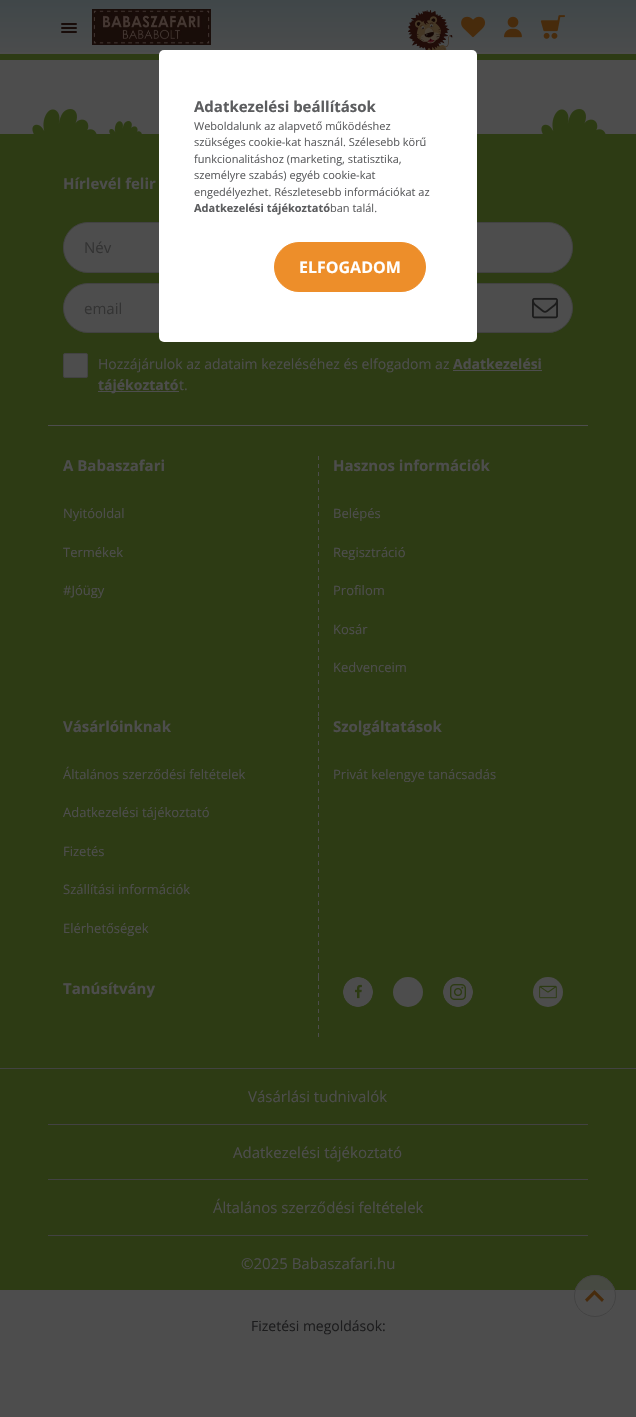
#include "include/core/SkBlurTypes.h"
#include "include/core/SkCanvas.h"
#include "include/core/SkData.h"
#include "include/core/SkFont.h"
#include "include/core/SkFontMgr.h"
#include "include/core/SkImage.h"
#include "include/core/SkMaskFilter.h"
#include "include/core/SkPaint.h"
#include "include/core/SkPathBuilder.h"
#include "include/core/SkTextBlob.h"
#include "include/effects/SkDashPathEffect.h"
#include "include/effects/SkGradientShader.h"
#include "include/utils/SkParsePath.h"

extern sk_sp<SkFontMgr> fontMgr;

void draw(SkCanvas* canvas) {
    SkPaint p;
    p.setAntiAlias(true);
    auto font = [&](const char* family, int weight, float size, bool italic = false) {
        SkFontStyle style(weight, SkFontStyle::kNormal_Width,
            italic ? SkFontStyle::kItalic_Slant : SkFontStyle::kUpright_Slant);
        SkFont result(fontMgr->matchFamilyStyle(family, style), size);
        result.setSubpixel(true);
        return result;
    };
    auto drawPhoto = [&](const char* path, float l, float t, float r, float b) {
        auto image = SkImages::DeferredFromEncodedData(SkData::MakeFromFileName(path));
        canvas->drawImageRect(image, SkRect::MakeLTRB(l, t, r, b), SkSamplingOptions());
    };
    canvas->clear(0xFF4D4D4D);
    {
        const SkColor colors[] = {0xFF3C4548, 0xFF4D4D4D};
        const float stops[] = {0, 1};
        const SkPoint ends[] = {{318, -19}, {318, 64}};
        p.setShader(SkGradientShader::MakeLinear(ends, colors, stops, 2, SkTileMode::kClamp));
        p.setAlpha(255);
    }
    canvas->drawRect(SkRect::MakeLTRB(0, 0, 636, 52), p);
    p.setShader(nullptr);
    p.setColor(0xFF2D3B14);
    canvas->drawRect(SkRect::MakeLTRB(0, 54, 636, 60), p);
    canvas->drawRect(SkRect::MakeLTRB(0, 134, 636, 1290), p);
    p.setColor(0xFF4D4D4D);
    canvas->drawRoundRect(SkRect::MakeLTRB(63.5f, 222.5f, 572.5f, 272.5f), 24.5f, 24.5f, p);
    p.setStyle(SkPaint::kStroke_Style);
    p.setStrokeWidth(1);
    p.setColor(0xFF424242);
    canvas->drawRoundRect(SkRect::MakeLTRB(63.5f, 222.5f, 572.5f, 272.5f), 24.5f, 24.5f, p);
    p.setStyle(SkPaint::kFill_Style);
    p.setColor(0xFF4D4D4D);
    canvas->drawRoundRect(SkRect::MakeLTRB(63.5f, 283.5f, 572.5f, 332.5f), 24.5f, 24.5f, p);
    p.setStyle(SkPaint::kStroke_Style);
    p.setColor(0xFF424242);
    canvas->drawRoundRect(SkRect::MakeLTRB(63.5f, 283.5f, 572.5f, 332.5f), 24.5f, 24.5f, p);
    p.setStyle(SkPaint::kFill_Style);
    p.setColor(0xFFFFFFFF);
    canvas->drawRoundRect(SkRect::MakeLTRB(159, 50, 477, 342), 5, 5, p);
    auto font1 = font("Open Sans", 700, 15);
    p.setColor(0xFF5C5D5F);
    canvas->drawString("Adatkezelési beállítások", 194, 112, font1, p);
    auto font2 = font("Open Sans", 400, 11);
    {
        const struct { const char* s; float x, y; } items[] = {
            {"Weboldalunk az alapvető működéshez", 194, 130},
            {"szükséges cookie-kat használ. Szélesebb körű", 194, 146},
            {"funkcionalitáshoz (marketing, statisztika,", 194, 163},
            {"személyre szabás) egyéb cookie-kat", 194, 179},
            {"engedélyezhet. Részletesebb információkat az", 194, 196},
        };
        for (auto [s, x, y] : items) {
            canvas->drawString(s, x, y, font2, p);
        }
    }
    auto font3 = font("Open Sans", 700, 11);
    canvas->drawString("Adatkezelési tájékoztató", 194, 212, font3, p);
    canvas->drawString("ban talál.", 330, 212, font2, p);
    p.setColor(0xFFED8E2A);
    canvas->drawRoundRect(SkRect::MakeLTRB(274.5f, 242.5f, 425.5f, 291.5f), 24.5f, 24.5f, p);
    p.setStyle(SkPaint::kStroke_Style);
    canvas->drawRoundRect(SkRect::MakeLTRB(274.5f, 242.5f, 425.5f, 291.5f), 24.5f, 24.5f, p);
    auto font4 = font("Open Sans", 700, 16);
    p.setStyle(SkPaint::kFill_Style);
    p.setColor(0xFFFFFFFF);
    canvas->drawString("ELFOGADOM", 299, 273, font4, p);
    p.setColor(0xFF180C09);
    canvas->drawRoundRect(SkRect::MakeLTRB(61, 23, 77, 25), 1, 1, p);
    canvas->drawRoundRect(SkRect::MakeLTRB(61, 27, 77, 29), 1, 1, p);
    canvas->drawRoundRect(SkRect::MakeLTRB(61, 31, 77, 33), 1, 1, p);
    drawPhoto("media/1.png", 92, 9, 211, 45);
    drawPhoto("media/2.png", 408, 10, 453, 50);
    drawPhoto("media/3.png", 461, 16, 486, 38);
    drawPhoto("media/4.png", 504, 16, 522, 38);
    drawPhoto("media/5.png", 540, 15, 565, 39);
    drawPhoto("media/6.png", 32, 109, 97, 134);
    drawPhoto("media/7.png", 109, 121, 142, 134);
    drawPhoto("media/6.png", 541, 109, 606, 134);
    p.setColor(0xFF4D4D4D);
    canvas->drawRect(SkRect::MakeLTRB(48, 425, 588, 426), p);
    canvas->drawString("Hírlevél felir", 63, 189, font1, p);
    auto font5 = font("Open Sans", 400, 15);
    p.setColor(0xFF333333);
    canvas->drawString("Név", 84, 253, font5, p);
    canvas->drawString("email", 84, 314, font5, p);
    drawPhoto("media/8.png", 532, 297, 558, 319);
    p.setColor(0xFF4D4D4D);
    canvas->drawRoundRect(SkRect::MakeLTRB(63.5f, 353.5f, 87.5f, 377.5f), 1.5f, 1.5f, p);
    p.setStyle(SkPaint::kStroke_Style);
    p.setColor(0xFF424242);
    canvas->drawRoundRect(SkRect::MakeLTRB(63.5f, 353.5f, 87.5f, 377.5f), 1.5f, 1.5f, p);
    auto font6 = font("Open Sans", 400, 14);
    p.setStyle(SkPaint::kFill_Style);
    p.setColor(0xFF4D4D4D);
    canvas->drawString("Hozzájárulok az adataim kezeléséhez és elfogadom az", 98, 369, font6, p);
    auto font7 = font("Open Sans", 700, 14);
    canvas->drawString("Adatkezelési", 453, 369, font7, p);
    canvas->drawRect(SkRect::MakeLTRB(453, 370, 542, 371), p);
    canvas->drawRect(SkRect::MakeLTRB(98, 391, 179, 392), p);
    canvas->drawString("tájékoztató", 98, 390, font7, p);
    canvas->drawString("t.", 179, 390, font6, p);
    canvas->drawString("A Babaszafari", 63, 471, font1, p);
    auto font8 = font("Open Sans", 400, 13);
    {
        const struct { const char* s; float x, y; } items[] = {
            {"Nyitóoldal", 63, 518},
            {"Termékek", 63, 557},
            {"#Jóügy", 63, 595},
        };
        for (auto [s, x, y] : items) {
            canvas->drawString(s, x, y, font8, p);
        }
    }
    drawPhoto("media/9.png", 318, 456, 319, 716);
    canvas->drawString("Hasznos információk", 333, 471, font1, p);
    {
        const struct { const char* s; float x, y; } items[] = {
            {"Belépés", 333, 518},
            {"Regisztráció", 333, 557},
            {"Profilom", 333, 595},
            {"Kosár", 333, 634},
            {"Kedvenceim", 333, 672},
        };
        for (auto [s, x, y] : items) {
            canvas->drawString(s, x, y, font8, p);
        }
    }
    canvas->drawString("Vásárlóinknak", 63, 732, font1, p);
    {
        const struct { const char* s; float x, y; } items[] = {
            {"Általános szerződési feltételek", 63, 779},
            {"Adatkezelési tájékoztató", 63, 817},
            {"Fizetés", 63, 856},
            {"Szállítási információk", 63, 894},
            {"Elérhetőségek", 63, 933},
        };
        for (auto [s, x, y] : items) {
            canvas->drawString(s, x, y, font8, p);
        }
    }
    drawPhoto("media/9.png", 318, 717, 319, 977);
    canvas->drawString("Szolgáltatások", 333, 732, font1, p);
    canvas->drawString("Privát kelengye tanácsadás", 333, 779, font8, p);
    canvas->drawString("Tanúsítvány", 63, 994, font1, p);
    {
        const SkColor colors[] = {0xFF4D4D4D, 0xFF4D4D4D, 0xFF2D3B14, 0xFF2D3B14};
        const float stops[] = {0, 0.5f, 0.5f, 1};
        const SkPoint ends[] = {{320, 977}, {320, 985}};
        p.setShader(SkGradientShader::MakeLinear(ends, colors, stops, 4, SkTileMode::kClamp));
        p.setAlpha(255);
    }
    canvas->drawRect(SkRect::MakeLTRB(318, 977, 319, 985), p);
    {
        const SkColor colors[] = {0xFF4D4D4D, 0xFF4D4D4D, 0xFF2D3B14, 0xFF2D3B14};
        const float stops[] = {0, 0.5f, 0.5f, 1};
        const SkPoint ends[] = {{320, 985}, {320, 993}};
        p.setShader(SkGradientShader::MakeLinear(ends, colors, stops, 4, SkTileMode::kClamp));
        p.setAlpha(255);
    }
    canvas->drawRect(SkRect::MakeLTRB(318, 985, 319, 993), p);
    {
        const SkColor colors[] = {0xFF4D4D4D, 0xFF4D4D4D, 0xFF2D3B14, 0xFF2D3B14};
        const float stops[] = {0, 0.5f, 0.5f, 1};
        const SkPoint ends[] = {{320, 993}, {320, 1001}};
        p.setShader(SkGradientShader::MakeLinear(ends, colors, stops, 4, SkTileMode::kClamp));
        p.setAlpha(255);
    }
    canvas->drawRect(SkRect::MakeLTRB(318, 993, 319, 1001), p);
    {
        const SkColor colors[] = {0xFF4D4D4D, 0xFF4D4D4D, 0xFF2D3B14, 0xFF2D3B14};
        const float stops[] = {0, 0.5f, 0.5f, 1};
        const SkPoint ends[] = {{320, 1001}, {320, 1009}};
        p.setShader(SkGradientShader::MakeLinear(ends, colors, stops, 4, SkTileMode::kClamp));
        p.setAlpha(255);
    }
    canvas->drawRect(SkRect::MakeLTRB(318, 1001, 319, 1009), p);
    {
        const SkColor colors[] = {0xFF4D4D4D, 0xFF4D4D4D, 0xFF2D3B14, 0xFF2D3B14};
        const float stops[] = {0, 0.5f, 0.5f, 1};
        const SkPoint ends[] = {{320, 1009}, {320, 1017}};
        p.setShader(SkGradientShader::MakeLinear(ends, colors, stops, 4, SkTileMode::kClamp));
        p.setAlpha(255);
    }
    canvas->drawRect(SkRect::MakeLTRB(318, 1009, 319, 1017), p);
    {
        const SkColor colors[] = {0xFF4D4D4D, 0xFF4D4D4D, 0xFF2D3B14, 0xFF2D3B14};
        const float stops[] = {0, 0.5f, 0.5f, 1};
        const SkPoint ends[] = {{320, 1017}, {320, 1025}};
        p.setShader(SkGradientShader::MakeLinear(ends, colors, stops, 4, SkTileMode::kClamp));
        p.setAlpha(255);
    }
    canvas->drawRect(SkRect::MakeLTRB(318, 1017, 319, 1025), p);
    {
        const SkColor colors[] = {0xFF4D4D4D, 0xFF4D4D4D, 0xFF2D3B14, 0xFF2D3B14};
        const float stops[] = {0, 0.5f, 0.5f, 1};
        const SkPoint ends[] = {{320, 1025}, {320, 1033}};
        p.setShader(SkGradientShader::MakeLinear(ends, colors, stops, 4, SkTileMode::kClamp));
        p.setAlpha(255);
    }
    canvas->drawRect(SkRect::MakeLTRB(318, 1025, 319, 1033), p);
    {
        const SkColor colors[] = {0xFF4D4D4D, 0xFF4D4D4D, 0xFF2D3B14, 0xFF2D3B14};
        const float stops[] = {0, 0.5f, 0.5f, 1};
        const SkPoint ends[] = {{320, 1033}, {320, 1041}};
        p.setShader(SkGradientShader::MakeLinear(ends, colors, stops, 4, SkTileMode::kClamp));
        p.setAlpha(255);
    }
    canvas->drawRect(SkRect::MakeLTRB(318, 1033, 319, 1038), p);
    drawPhoto("media/10.png", 343, 977, 373, 1007);
    p.setShader(nullptr);
    p.setColor(0xFF4D4D4D);
    canvas->drawCircle(408, 992, 15, p);
    drawPhoto("media/11.png", 443, 977, 473, 1007);
    canvas->drawCircle(548, 992, 15, p);
    drawPhoto("media/12.png", 539, 985, 557, 999);
    p.setColor(0xFF424242);
    canvas->drawRect(SkRect::MakeLTRB(0, 1068, 636, 1069), p);
    canvas->drawRect(SkRect::MakeLTRB(48, 1124, 588, 1125), p);
    p.setColor(0xFF4D4D4D);
    canvas->drawString("Vásárlási tudnivalók", 248, 1102, font5, p);
    p.setColor(0xFF424242);
    canvas->drawRect(SkRect::MakeLTRB(48, 1179, 588, 1180), p);
    p.setColor(0xFF4D4D4D);
    canvas->drawString("Adatkezelési tájékoztató", 233, 1158, font5, p);
    p.setColor(0xFF424242);
    canvas->drawRect(SkRect::MakeLTRB(48, 1235, 588, 1236), p);
    p.setColor(0xFF4D4D4D);
    canvas->drawString("Általános szerződési feltételek", 213, 1213, font5, p);
    canvas->drawString("©2025 Babaszafari.hu", 241, 1269, font5, p);
    p.setColor(0xCC4D4D4D);
    canvas->drawCircle(595, 1296, 21, p);
    p.setColor(0xFF472B0D);
    canvas->drawPath(SkPathBuilder().moveTo(587, 1302).lineTo(585, 1299.5f).lineTo(594.5f, 1290).lineTo(604, 1299.5f).lineTo(602, 1302).lineTo(594.5f, 1294.5f).close().detach(), p);
    p.setStyle(SkPaint::kStroke_Style);
    p.setColor(0xFF424242);
    canvas->drawCircle(595, 1296, 20.5f, p);
    p.setStyle(SkPaint::kFill_Style);
    p.setColor(0xFF1C1C1D);
    canvas->drawString("Fizetési megoldások:", 251, 1331, font6, p);
}
